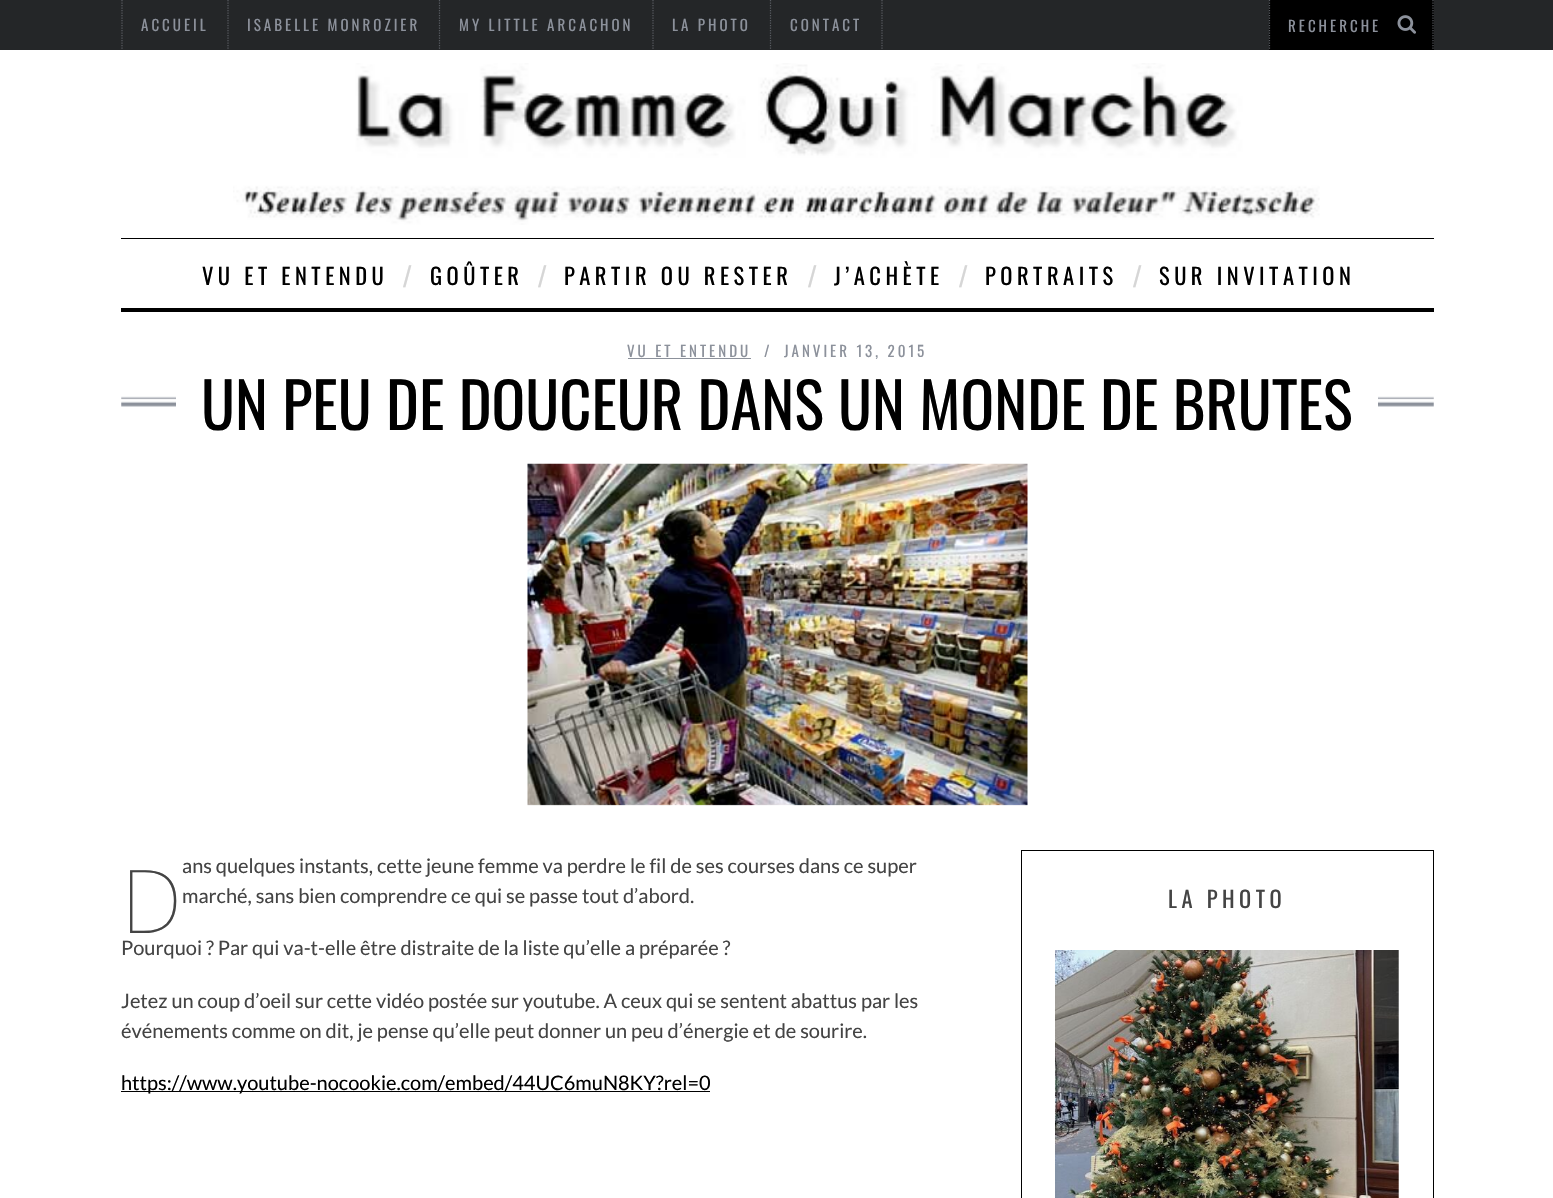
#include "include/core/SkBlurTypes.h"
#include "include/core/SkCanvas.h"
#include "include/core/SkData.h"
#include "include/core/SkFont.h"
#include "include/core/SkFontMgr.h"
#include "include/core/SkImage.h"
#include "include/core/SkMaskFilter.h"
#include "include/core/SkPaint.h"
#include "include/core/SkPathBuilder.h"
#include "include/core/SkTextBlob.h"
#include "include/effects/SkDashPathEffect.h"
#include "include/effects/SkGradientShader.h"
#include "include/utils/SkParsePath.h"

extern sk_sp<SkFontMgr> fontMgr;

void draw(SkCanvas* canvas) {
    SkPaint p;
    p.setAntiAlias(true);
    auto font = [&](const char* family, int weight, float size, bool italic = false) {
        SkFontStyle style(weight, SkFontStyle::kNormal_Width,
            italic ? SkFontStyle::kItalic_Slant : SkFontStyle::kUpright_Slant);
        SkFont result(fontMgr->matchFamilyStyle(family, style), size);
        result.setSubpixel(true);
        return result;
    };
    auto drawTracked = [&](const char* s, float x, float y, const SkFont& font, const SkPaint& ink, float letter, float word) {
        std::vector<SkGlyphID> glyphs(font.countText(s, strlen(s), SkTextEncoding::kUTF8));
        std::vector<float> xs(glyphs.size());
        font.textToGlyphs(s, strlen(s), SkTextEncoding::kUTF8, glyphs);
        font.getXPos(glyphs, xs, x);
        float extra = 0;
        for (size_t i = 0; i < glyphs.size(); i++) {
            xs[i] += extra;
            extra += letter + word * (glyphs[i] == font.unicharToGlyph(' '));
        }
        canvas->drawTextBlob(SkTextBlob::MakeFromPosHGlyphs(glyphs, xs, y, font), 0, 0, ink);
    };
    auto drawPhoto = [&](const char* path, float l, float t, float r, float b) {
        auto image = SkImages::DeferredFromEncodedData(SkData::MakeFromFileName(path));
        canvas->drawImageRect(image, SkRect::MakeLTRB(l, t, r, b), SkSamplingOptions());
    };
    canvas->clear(0xFFFFFFFF);
    p.setColor(0xFF242628);
    canvas->drawRect(SkRect::MakeLTRB(0, 0, 1553, 50), p);
    p.setStyle(SkPaint::kStroke_Style);
    p.setStrokeWidth(1.2f);
    p.setColor(0xFF585B61);
    p.setPathEffect(SkDashPathEffect::Make({{1.25f, 1.25f}}, 0));
    canvas->drawPath(SkPathBuilder().moveTo(228, 0).lineTo(228, 50).detach(), p);
    p.setPathEffect(nullptr);
    p.setPathEffect(SkDashPathEffect::Make({{1.25f, 1.25f}}, 0));
    canvas->drawPath(SkPathBuilder().moveTo(122, 0).lineTo(122, 50).detach(), p);
    p.setPathEffect(nullptr);
    auto font1 = font("Oswald", 400, 15);
    p.setStyle(SkPaint::kFill_Style);
    p.setColor(0xFF8C919B);
    drawTracked("ACCUEIL", 141, 31, font1, p, 3, 0);
    p.setStyle(SkPaint::kStroke_Style);
    p.setColor(0xFF585B61);
    p.setPathEffect(SkDashPathEffect::Make({{1.25f, 1.25f}}, 0));
    canvas->drawPath(SkPathBuilder().moveTo(439.5f, 0).lineTo(439.5f, 50).detach(), p);
    p.setPathEffect(nullptr);
    p.setStyle(SkPaint::kFill_Style);
    p.setColor(0xFF8C919B);
    drawTracked("ISABELLE MONROZIER", 247, 31, font1, p, 3, 0);
    p.setStyle(SkPaint::kStroke_Style);
    p.setColor(0xFF585B61);
    p.setPathEffect(SkDashPathEffect::Make({{1.25f, 1.25f}}, 0));
    canvas->drawPath(SkPathBuilder().moveTo(653, 0).lineTo(653, 50).detach(), p);
    p.setPathEffect(nullptr);
    p.setStyle(SkPaint::kFill_Style);
    p.setColor(0xFF8C919B);
    drawTracked("MY LITTLE ARCACHON", 459, 31, font1, p, 3, 0);
    p.setStyle(SkPaint::kStroke_Style);
    p.setColor(0xFF585B61);
    p.setPathEffect(SkDashPathEffect::Make({{1.25f, 1.25f}}, 0));
    canvas->drawPath(SkPathBuilder().moveTo(770.5f, 0).lineTo(770.5f, 50).detach(), p);
    p.setPathEffect(nullptr);
    p.setStyle(SkPaint::kFill_Style);
    p.setColor(0xFF8C919B);
    drawTracked("LA PHOTO", 672, 31, font1, p, 3, 0);
    p.setStyle(SkPaint::kStroke_Style);
    p.setColor(0xFF585B61);
    p.setPathEffect(SkDashPathEffect::Make({{1.25f, 1.25f}}, 0));
    canvas->drawPath(SkPathBuilder().moveTo(882, 0).lineTo(882, 50).detach(), p);
    p.setPathEffect(nullptr);
    p.setStyle(SkPaint::kFill_Style);
    p.setColor(0xFF8C919B);
    drawTracked("CONTACT", 790, 31, font1, p, 3, 0);
    p.setColor(0xFF000000);
    canvas->drawRect(SkRect::MakeLTRB(1269, 0, 1434, 50), p);
    p.setStyle(SkPaint::kStroke_Style);
    p.setColor(0xFF585B61);
    p.setPathEffect(SkDashPathEffect::Make({{1.25f, 1.25f}}, 0));
    canvas->drawPath(SkPathBuilder().moveTo(1433, 0).lineTo(1433, 50).detach(), p);
    p.setPathEffect(nullptr);
    p.setPathEffect(SkDashPathEffect::Make({{1.25f, 1.25f}}, 0));
    canvas->drawPath(SkPathBuilder().moveTo(1269.5f, 0).lineTo(1269.5f, 50).detach(), p);
    p.setPathEffect(nullptr);
    p.setStyle(SkPaint::kFill_Style);
    p.setColor(0xFF8C919B);
    drawTracked("RECHERCHE", 1288, 32, font1, p, 3, 0);
    drawPhoto("media/1.png", 1397, 15, 1416, 34);
    drawPhoto("media/2.png", 233, 63, 1320, 225);
    p.setColor(0xFF000000);
    canvas->drawRect(SkRect::MakeLTRB(121, 238, 1434, 239), p);
    canvas->drawRect(SkRect::MakeLTRB(121, 308, 1434, 312), p);
    auto font2 = font("Oswald", 400, 22.5f);
    drawTracked("VU ET ENTENDU", 202, 285, font2, p, 4.5f, 0);
    auto font3 = font("Liberation Sans", 400, 30);
    p.setColor(0xFFD6D6D6);
    drawTracked("/", 403, 287, font3, p, 4.5f, 0);
    p.setColor(0xFF000000);
    drawTracked("GOÛTER", 430, 285, font2, p, 4.5f, 0);
    p.setColor(0xFFD6D6D6);
    drawTracked("/", 538, 287, font3, p, 4.5f, 0);
    p.setColor(0xFF000000);
    drawTracked("PARTIR OU RESTER", 564, 285, font2, p, 4.5f, 0);
    p.setColor(0xFFD6D6D6);
    drawTracked("/", 808, 287, font3, p, 4.5f, 0);
    p.setColor(0xFF000000);
    drawTracked("J’ACHÈTE", 834, 285, font2, p, 4.5f, 0);
    p.setColor(0xFFD6D6D6);
    drawTracked("/", 959, 287, font3, p, 4.5f, 0);
    p.setColor(0xFF000000);
    drawTracked("PORTRAITS", 985, 285, font2, p, 4.5f, 0);
    p.setColor(0xFFD6D6D6);
    drawTracked("/", 1133, 287, font3, p, 4.5f, 0);
    p.setColor(0xFF000000);
    drawTracked("SUR INVITATION", 1159, 285, font2, p, 4.5f, 0);
    p.setColor(0xFF8C919B);
    drawTracked("VU ET ENTENDU", 627, 357, font1, p, 3, 0);
    canvas->drawRect(SkRect::MakeLTRB(628, 358, 751, 359), p);
    drawTracked("/", 764, 357, font1, p, 3, 0);
    drawTracked("JANVIER 13, 2015", 784, 357, font1, p, 3, 0);
    drawPhoto("media/3.png", 121, 396, 1434, 407);
    p.setColor(0xFFFFFFFF);
    canvas->drawRect(SkRect::MakeLTRB(176, 396, 1378, 407), p);
    auto font4 = font("Oswald", 400, 62.5f);
    p.setColor(0xFF000000);
    canvas->drawString("UN PEU DE DOUCEUR DANS UN MONDE DE BRUTES", 201, 430, font4, p);
    drawPhoto("media/4.png", 527, 463, 1028, 806);
    auto font5 = font("Lato", 400, 20);
    p.setColor(0xFF444444);
    canvas->drawString("ans quelques instants, cette jeune femme va perdre le fil de ses courses dans ce super", 182, 873, font5, p);
    auto font6 = font("Noto Sans", 100, 88);
    canvas->drawString("D", 121, 933, font6, p);
    {
        const struct { const char* s; float x, y; } items[] = {
            {"marché, sans bien comprendre ce qui se passe tout d’abord.", 182, 903},
            {"Pourquoi ? Par qui va-t-elle être distraite de la liste qu’elle a préparée ?", 121, 955},
            {"Jetez un coup d’oeil sur cette vidéo postée sur youtube. A ceux qui se sentent abattus par les", 121, 1008},
            {"événements comme on dit, je pense qu’elle peut donner un peu d’énergie et de sourire.", 121, 1038},
        };
        for (auto [s, x, y] : items) {
            canvas->drawString(s, x, y, font5, p);
        }
    }
    p.setColor(0xFF000000);
    canvas->drawRect(SkRect::MakeLTRB(121, 1091, 710, 1092), p);
    canvas->drawString("https://www.youtube-nocookie.com/embed/44UC6muN8KY?rel=0", 121, 1090, font5, p);
    p.setStyle(SkPaint::kStroke_Style);
    p.setStrokeWidth(1);
    canvas->drawRect(SkRect::MakeLTRB(1021.5f, 850.5f, 1433.5f, 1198.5f), p);
    p.setStyle(SkPaint::kFill_Style);
    p.setColor(0xFF444444);
    drawTracked("LA PHOTO", 1168, 908, font2, p, 4.5f, 0);
    drawPhoto("media/5.png", 1055, 950, 1399, 1198);
}
